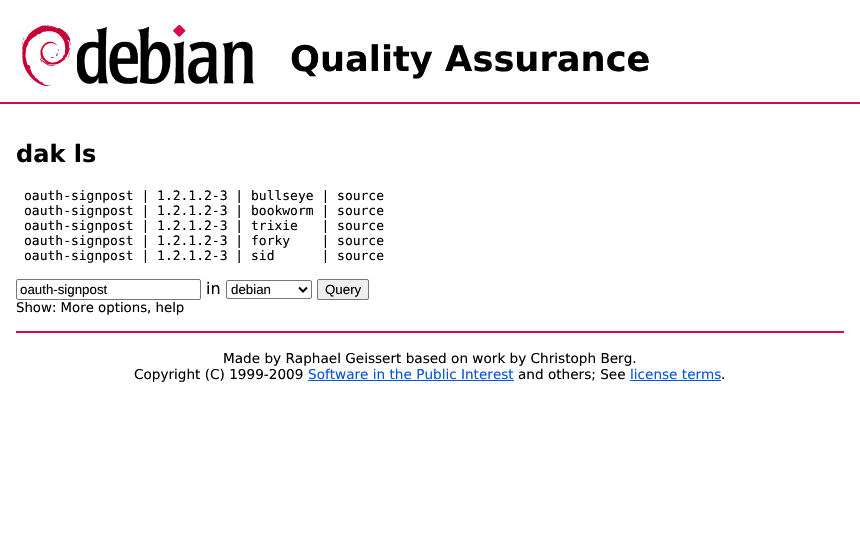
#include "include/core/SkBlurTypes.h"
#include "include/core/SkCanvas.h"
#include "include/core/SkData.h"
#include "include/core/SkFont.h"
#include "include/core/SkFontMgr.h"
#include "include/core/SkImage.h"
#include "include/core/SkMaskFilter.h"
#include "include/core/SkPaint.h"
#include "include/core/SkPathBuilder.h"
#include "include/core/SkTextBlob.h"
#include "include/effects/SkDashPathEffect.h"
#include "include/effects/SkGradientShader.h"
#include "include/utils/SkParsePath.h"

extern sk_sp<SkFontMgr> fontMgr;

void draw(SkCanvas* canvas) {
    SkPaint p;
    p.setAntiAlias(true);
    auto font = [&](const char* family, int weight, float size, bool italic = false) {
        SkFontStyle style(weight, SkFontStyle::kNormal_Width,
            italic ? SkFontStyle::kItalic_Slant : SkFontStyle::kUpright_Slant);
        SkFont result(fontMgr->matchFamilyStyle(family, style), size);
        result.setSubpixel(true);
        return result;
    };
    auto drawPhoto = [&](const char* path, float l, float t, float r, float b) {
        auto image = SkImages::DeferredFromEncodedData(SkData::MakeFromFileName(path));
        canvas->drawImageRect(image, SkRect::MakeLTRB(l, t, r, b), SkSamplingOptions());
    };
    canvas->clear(0xFFFFFFFF);
    drawPhoto("media/1.png", 22, 25, 254, 86);
    auto font1 = font("DejaVu Sans", 700, 35.25f);
    p.setColor(0xFF000000);
    canvas->drawString("Quality Assurance", 290, 71, font1, p);
    p.setColor(0xFFD70751);
    canvas->drawRect(SkRect::MakeLTRB(0, 102, 860, 104), p);
    auto font2 = font("DejaVu Sans", 700, 24);
    p.setColor(0xFF000000);
    canvas->drawString("dak ls", 16, 162, font2, p);
    auto font3 = font("DejaVu Sans Mono", 400, 13);
    {
        const struct { const char* s; float x, y; } items[] = {
            {"oauth-signpost | 1.2.1.2-3 | bullseye | source", 24, 200},
            {"oauth-signpost | 1.2.1.2-3 | bookworm | source", 24, 215},
            {"oauth-signpost | 1.2.1.2-3 | trixie   | source", 24, 230},
            {"oauth-signpost | 1.2.1.2-3 | forky    | source", 24, 245},
            {"oauth-signpost | 1.2.1.2-3 | sid      | source", 24, 260},
        };
        for (auto [s, x, y] : items) {
            canvas->drawString(s, x, y, font3, p);
        }
    }
    p.setStyle(SkPaint::kStroke_Style);
    p.setStrokeWidth(1);
    p.setColor(0xFF767676);
    canvas->drawRoundRect(SkRect::MakeLTRB(16.5f, 279.5f, 200.5f, 299.5f), 1.5f, 1.5f, p);
    auto font4 = font("Liberation Sans", 400, 13.3f);
    p.setStyle(SkPaint::kFill_Style);
    p.setColor(0xFF000000);
    canvas->drawString("oauth-signpost", 20, 294, font4, p);
    auto font5 = font("DejaVu Sans", 400, 16);
    canvas->drawString("in", 206, 294, font5, p);
    p.setStyle(SkPaint::kStroke_Style);
    p.setColor(0xFF767676);
    canvas->drawRoundRect(SkRect::MakeLTRB(226.5f, 280.5f, 311.5f, 298.5f), 1.5f, 1.5f, p);
    p.setStrokeWidth(2);
    p.setColor(0xFF000000);
    canvas->drawPath(SkPathBuilder().moveTo(299, 287.5f).lineTo(303, 291.5f).lineTo(307, 287.5f).detach(), p);
    p.setStyle(SkPaint::kFill_Style);
    canvas->drawString("debian", 231, 294, font4, p);
    p.setColor(0xFFEFEFEF);
    canvas->drawRoundRect(SkRect::MakeLTRB(317.5f, 279.5f, 368.5f, 299.5f), 1.5f, 1.5f, p);
    p.setStyle(SkPaint::kStroke_Style);
    p.setStrokeWidth(1);
    p.setColor(0xFF767676);
    canvas->drawRoundRect(SkRect::MakeLTRB(317.5f, 279.5f, 368.5f, 299.5f), 1.5f, 1.5f, p);
    p.setStyle(SkPaint::kFill_Style);
    p.setColor(0xFF000000);
    canvas->drawString("Query", 325, 294, font4, p);
    auto font6 = font("DejaVu Sans", 400, 13.3f);
    canvas->drawString("Show: More options, help", 16, 312, font6, p);
    p.setColor(0xFFD70751);
    canvas->drawRect(SkRect::MakeLTRB(16, 331, 844, 333), p);
    auto font7 = font("DejaVu Sans", 400, 13.6f);
    p.setColor(0xFF000000);
    canvas->drawString("Made by Raphael Geissert based on work by Christoph Berg.", 223, 363, font7, p);
    canvas->drawString("Copyright (C) 1999-2009", 134, 379, font7, p);
    p.setColor(0xFF0755D7);
    canvas->drawString("Software in the Public Interest", 308, 379, font7, p);
    canvas->drawRect(SkRect::MakeLTRB(308, 380, 514, 381), p);
    p.setColor(0xFF000000);
    canvas->drawString("and others; See", 518, 379, font7, p);
    p.setColor(0xFF0755D7);
    canvas->drawString("license terms", 630, 379, font7, p);
    canvas->drawRect(SkRect::MakeLTRB(630, 380, 721, 381), p);
    p.setColor(0xFF000000);
    canvas->drawString(".", 721, 379, font7, p);
}
